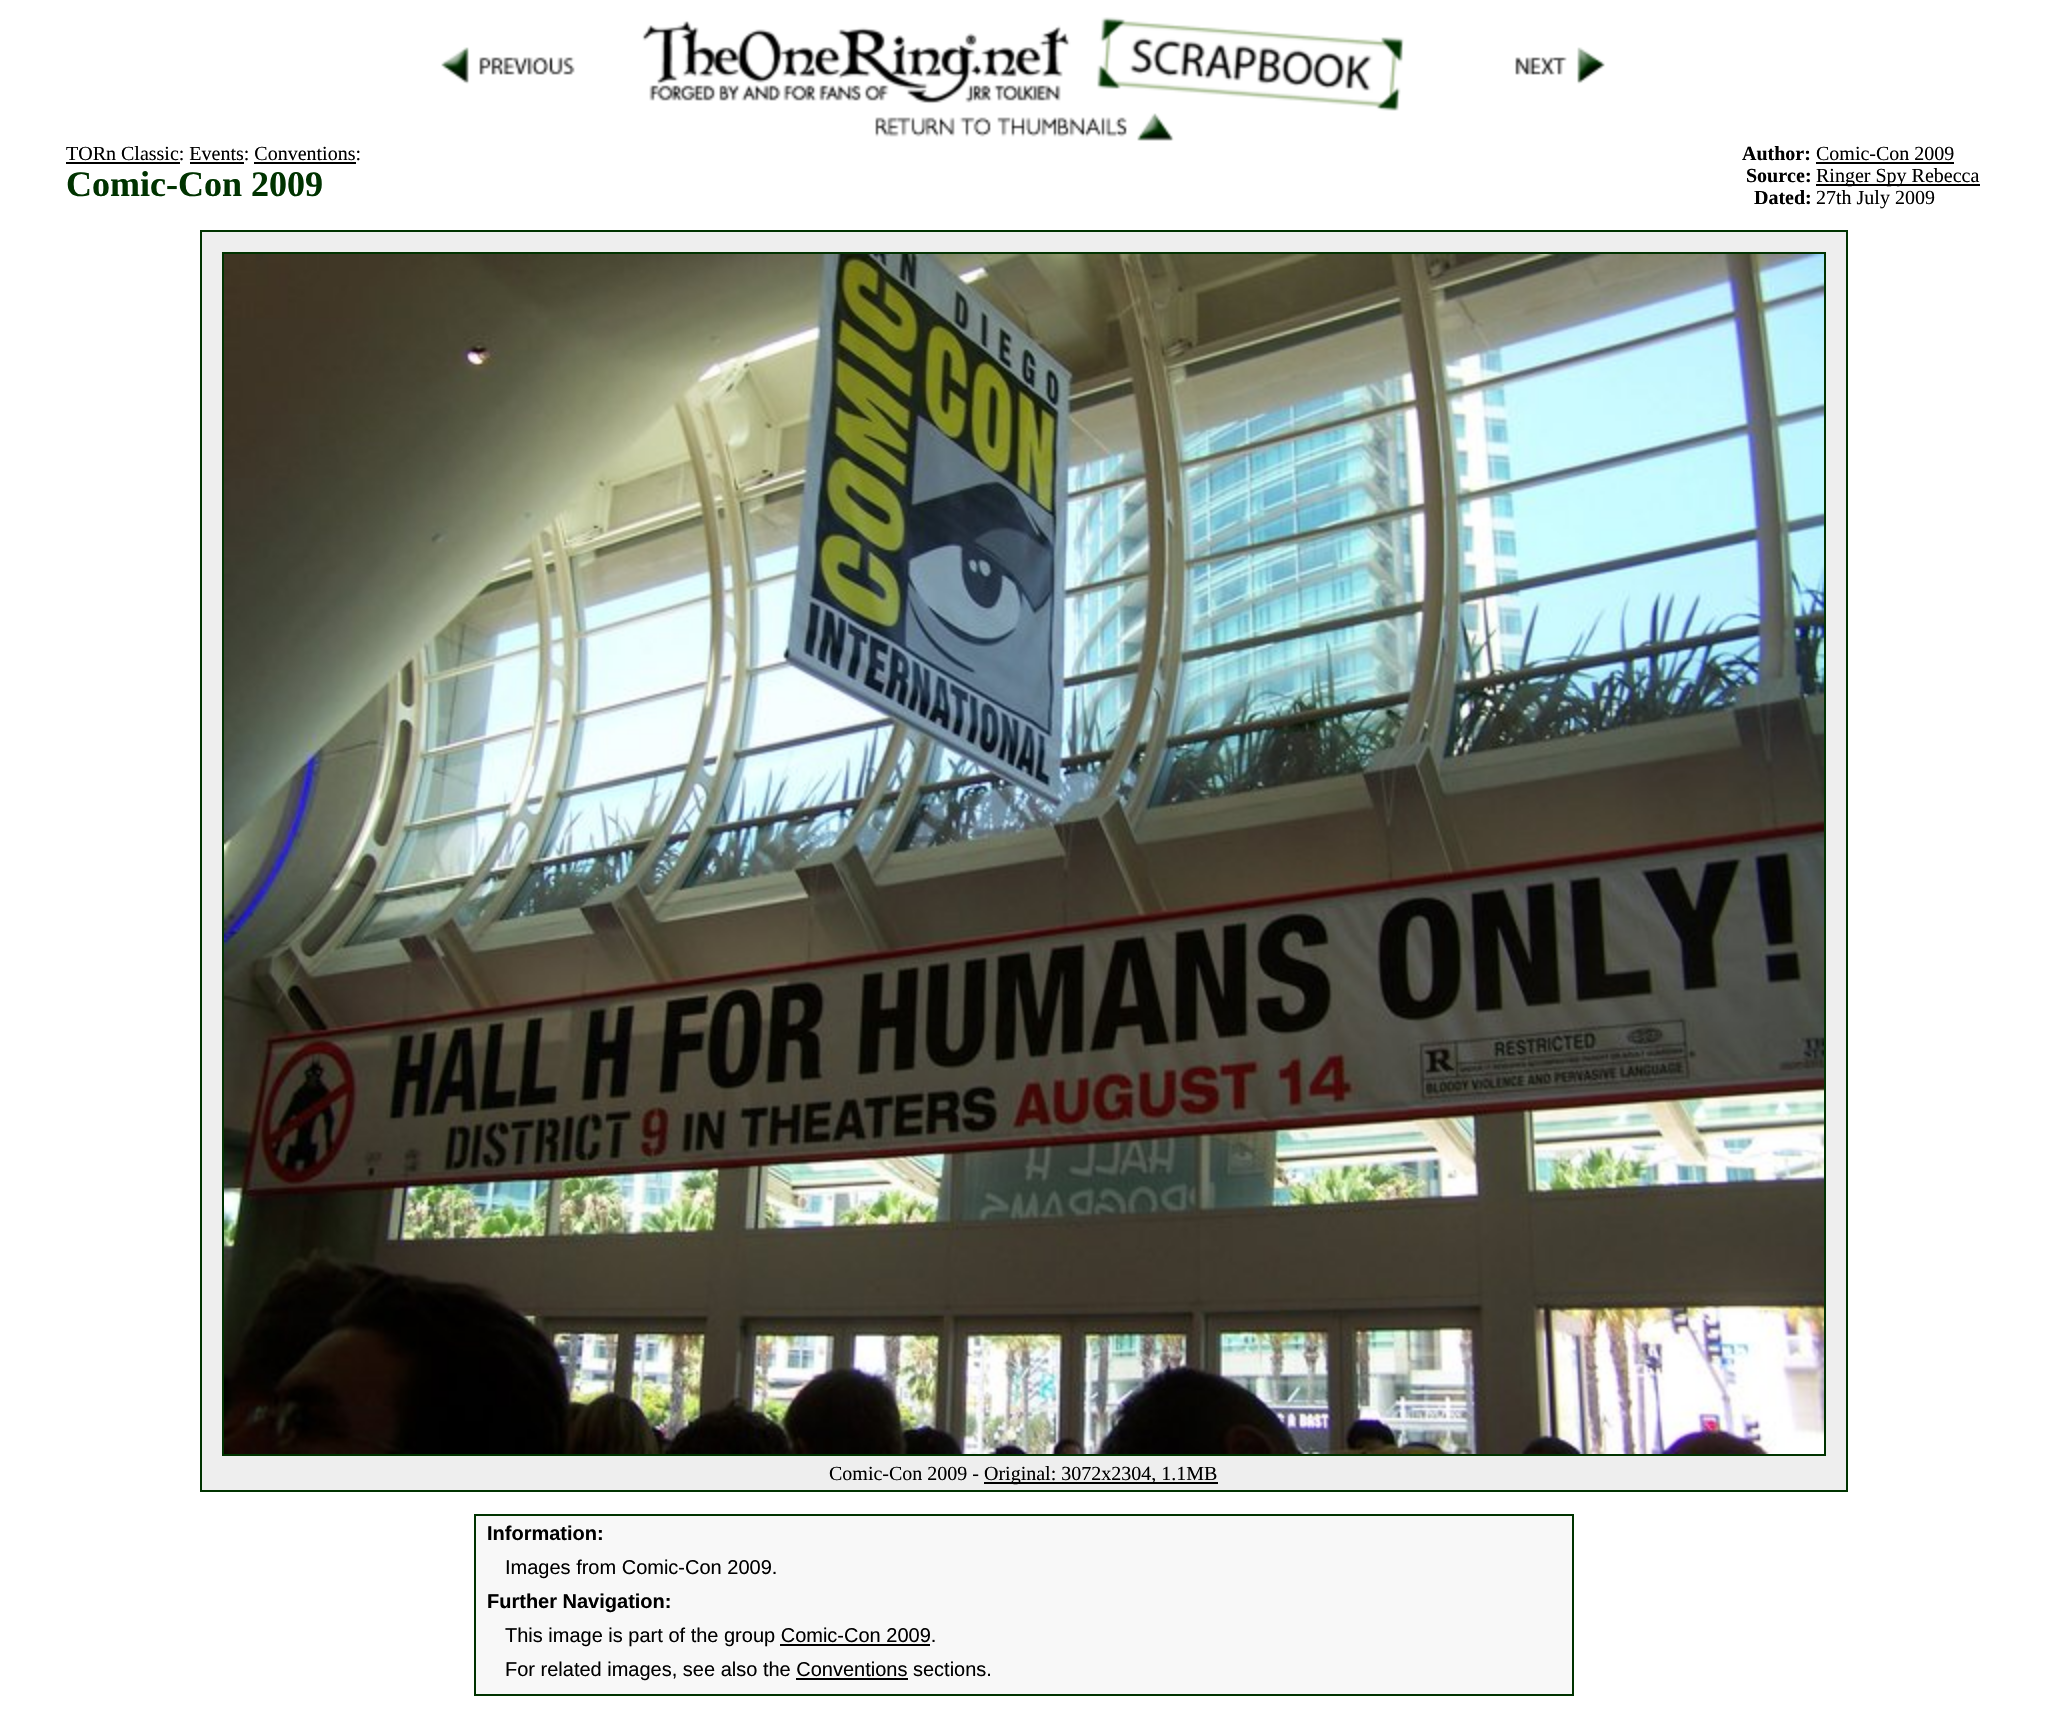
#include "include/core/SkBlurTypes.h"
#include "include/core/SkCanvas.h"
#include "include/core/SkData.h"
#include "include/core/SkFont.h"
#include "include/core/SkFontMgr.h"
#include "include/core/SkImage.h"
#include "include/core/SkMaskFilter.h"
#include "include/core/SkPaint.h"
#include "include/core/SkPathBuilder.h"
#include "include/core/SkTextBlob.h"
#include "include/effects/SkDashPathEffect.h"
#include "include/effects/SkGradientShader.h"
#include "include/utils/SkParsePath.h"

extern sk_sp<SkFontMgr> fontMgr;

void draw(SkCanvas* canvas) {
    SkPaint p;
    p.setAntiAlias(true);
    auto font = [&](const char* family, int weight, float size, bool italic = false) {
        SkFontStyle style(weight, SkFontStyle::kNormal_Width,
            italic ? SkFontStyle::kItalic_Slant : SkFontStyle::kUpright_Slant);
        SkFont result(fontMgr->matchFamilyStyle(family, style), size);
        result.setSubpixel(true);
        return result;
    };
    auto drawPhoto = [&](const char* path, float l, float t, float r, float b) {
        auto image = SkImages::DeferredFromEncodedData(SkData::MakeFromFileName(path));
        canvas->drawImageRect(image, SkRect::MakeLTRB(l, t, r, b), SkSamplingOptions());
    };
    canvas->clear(0xFFFFFFFF);
    drawPhoto("media/1.png", 441, 47, 575, 84);
    drawPhoto("media/2.png", 642, 17, 1404, 111);
    drawPhoto("media/3.png", 1515, 47, 1605, 84);
    drawPhoto("media/4.png", 875, 113, 1174, 141);
    auto font1 = font("Liberation Serif", 400, 20);
    p.setColor(0xFF000000);
    canvas->drawString("TORn Classic: Events: Conventions:", 66, 160, font1, p);
    {
        const struct { float l, t, r, b; SkColor color; } items[] = {
            {66, 162, 180, 164, 0xFF000000},
            {190, 162, 244, 164, 0xFF000000},
            {254, 162, 356, 164, 0xFF000000},
        };
        for (auto [l, t, r, b, color] : items) {
            p.setColor(color);
            canvas->drawRect(SkRect::MakeLTRB(l, t, r, b), p);
        }
    }
    auto font2 = font("Liberation Serif", 700, 36);
    p.setColor(0xFF003300);
    canvas->drawString("Comic-Con 2009", 66, 196, font2, p);
    auto font3 = font("Liberation Serif", 700, 20);
    p.setColor(0xFF000000);
    canvas->drawString("Author:", 1742, 160, font3, p);
    canvas->drawString("Comic-Con 2009", 1816, 160, font1, p);
    canvas->drawRect(SkRect::MakeLTRB(1816, 162, 1954, 164), p);
    canvas->drawString("Source:", 1746, 182, font3, p);
    canvas->drawRect(SkRect::MakeLTRB(1816, 184, 1980, 186), p);
    canvas->drawString("Ringer Spy Rebecca", 1816, 182, font1, p);
    canvas->drawString("Dated:", 1754, 204, font3, p);
    canvas->drawString("27th July 2009", 1816, 204, font1, p);
    p.setStyle(SkPaint::kStroke_Style);
    p.setStrokeWidth(2);
    p.setColor(0xFF003300);
    canvas->drawRect(SkRect::MakeLTRB(201, 231, 1847, 1491), p);
    p.setStyle(SkPaint::kFill_Style);
    p.setColor(0xFFEEEEEE);
    canvas->drawRect(SkRect::MakeLTRB(202, 232, 1846, 1490), p);
    p.setStyle(SkPaint::kStroke_Style);
    p.setColor(0xFF003300);
    canvas->drawRect(SkRect::MakeLTRB(223, 253, 1825, 1455), p);
    drawPhoto("media/5.png", 224, 254, 1824, 1454);
    p.setStyle(SkPaint::kFill_Style);
    p.setColor(0xFF000000);
    canvas->drawString("Comic-Con 2009 -", 829, 1480, font1, p);
    canvas->drawRect(SkRect::MakeLTRB(984, 1482, 1218, 1484), p);
    canvas->drawString("Original: 3072x2304, 1.1MB", 984, 1480, font1, p);
    p.setColor(0xFFF8F8F8);
    canvas->drawRect(SkRect::MakeLTRB(475, 1515, 1573, 1695), p);
    p.setStyle(SkPaint::kStroke_Style);
    p.setColor(0xFF003300);
    canvas->drawRect(SkRect::MakeLTRB(475, 1515, 1573, 1695), p);
    auto font4 = font("Liberation Sans", 700, 20);
    p.setStyle(SkPaint::kFill_Style);
    p.setColor(0xFF000000);
    canvas->drawString("Information:", 487, 1540, font4, p);
    auto font5 = font("Liberation Sans", 400, 20);
    canvas->drawString("Images from Comic-Con 2009.", 505, 1574, font5, p);
    canvas->drawString("Further Navigation:", 487, 1608, font4, p);
    canvas->drawString("This image is part of the group Comic-Con 2009.", 505, 1642, font5, p);
    canvas->drawRect(SkRect::MakeLTRB(780, 1644, 930, 1646), p);
    canvas->drawString("For related images, see also the Conventions sections.", 505, 1676, font5, p);
    canvas->drawRect(SkRect::MakeLTRB(796, 1678, 908, 1680), p);
}
